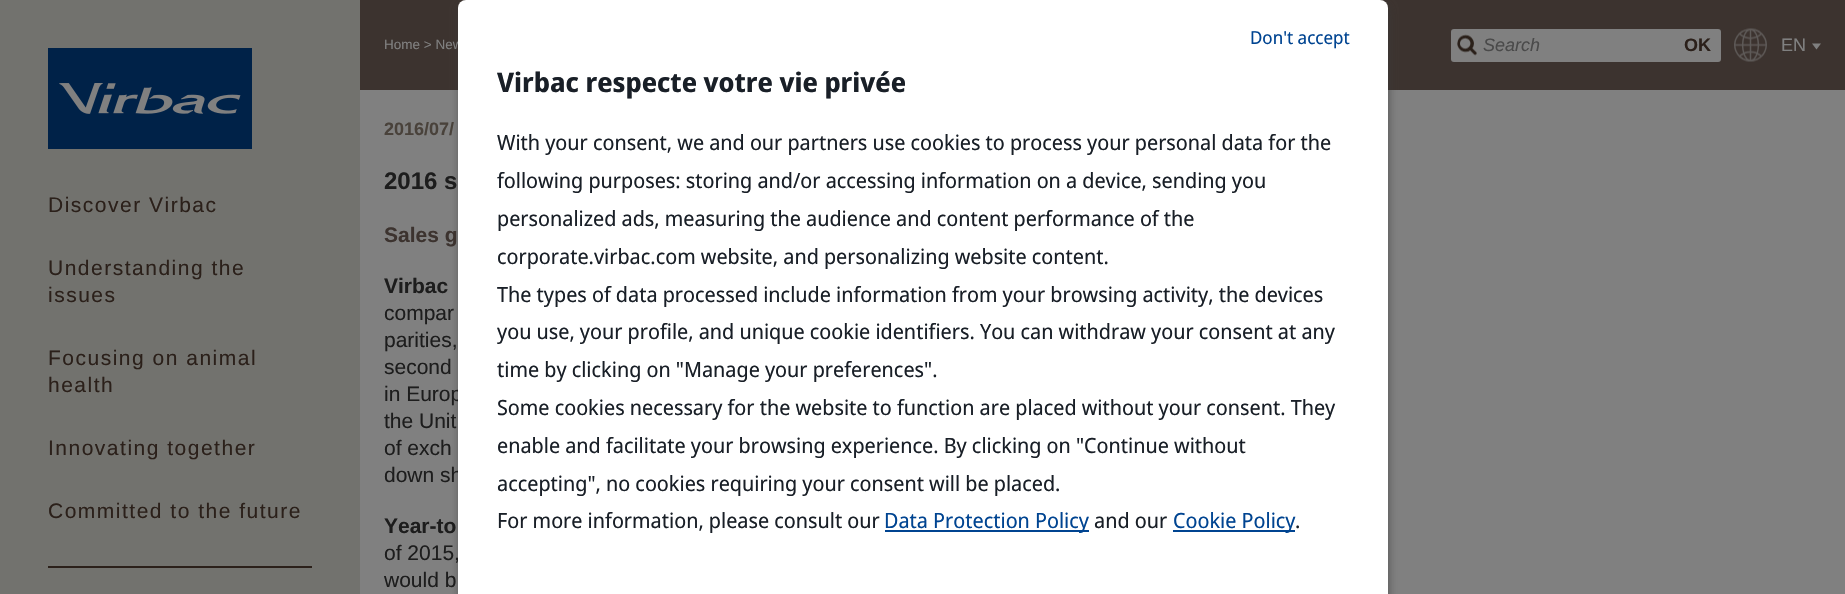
#include "include/core/SkBlurTypes.h"
#include "include/core/SkCanvas.h"
#include "include/core/SkData.h"
#include "include/core/SkFont.h"
#include "include/core/SkFontMgr.h"
#include "include/core/SkImage.h"
#include "include/core/SkMaskFilter.h"
#include "include/core/SkPaint.h"
#include "include/core/SkPathBuilder.h"
#include "include/core/SkTextBlob.h"
#include "include/effects/SkDashPathEffect.h"
#include "include/effects/SkGradientShader.h"
#include "include/utils/SkParsePath.h"

extern sk_sp<SkFontMgr> fontMgr;

void draw(SkCanvas* canvas) {
    SkPaint p;
    p.setAntiAlias(true);
    auto font = [&](const char* family, int weight, float size, bool italic = false) {
        SkFontStyle style(weight, SkFontStyle::kNormal_Width,
            italic ? SkFontStyle::kItalic_Slant : SkFontStyle::kUpright_Slant);
        SkFont result(fontMgr->matchFamilyStyle(family, style), size);
        result.setSubpixel(true);
        return result;
    };
    auto drawTracked = [&](const char* s, float x, float y, const SkFont& font, const SkPaint& ink, float letter, float word) {
        std::vector<SkGlyphID> glyphs(font.countText(s, strlen(s), SkTextEncoding::kUTF8));
        std::vector<float> xs(glyphs.size());
        font.textToGlyphs(s, strlen(s), SkTextEncoding::kUTF8, glyphs);
        font.getXPos(glyphs, xs, x);
        float extra = 0;
        for (size_t i = 0; i < glyphs.size(); i++) {
            xs[i] += extra;
            extra += letter + word * (glyphs[i] == font.unicharToGlyph(' '));
        }
        canvas->drawTextBlob(SkTextBlob::MakeFromPosHGlyphs(glyphs, xs, y, font), 0, 0, ink);
    };
    auto drawPhoto = [&](const char* path, float l, float t, float r, float b) {
        auto image = SkImages::DeferredFromEncodedData(SkData::MakeFromFileName(path));
        canvas->drawImageRect(image, SkRect::MakeLTRB(l, t, r, b), SkSamplingOptions());
    };
    canvas->clear(0xFF808080);
    p.setColor(0xFF3C332F);
    canvas->drawRect(SkRect::MakeLTRB(360, 0, 1845, 90), p);
    p.setColor(0x99383838);
    p.setMaskFilter(SkMaskFilter::MakeBlur(kNormal_SkBlurStyle, 4));
    canvas->drawRoundRect(SkRect::MakeLTRB(459, 5, 1389, 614), 8, 8, p);
    p.setMaskFilter(nullptr);
    auto font1 = font("Liberation Sans", 400, 13.5f);
    p.setColor(0xFF808080);
    canvas->drawString("Home > New", 384, 49, font1, p);
    auto font2 = font("Liberation Sans", 400, 21);
    p.setColor(0xFF1D1D1D);
    {
        const struct { const char* s; float x, y; } items[] = {
            {"in Europ", 384, 401},
            {"down sh", 384, 482},
            {"of 2015,", 384, 560},
        };
        for (auto [s, x, y] : items) {
            canvas->drawString(s, x, y, font2, p);
        }
    }
    p.setColor(0xFFFFFFFF);
    canvas->drawRoundRect(SkRect::MakeLTRB(458, 0, 1388, 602), 8, 8, p);
    auto font3 = font("Noto Sans Display", 400, 18);
    p.setColor(0xFF004491);
    canvas->drawString("Don't accept", 1250, 44, font3, p);
    auto font4 = font("Noto Sans Display", 700, 27);
    p.setColor(0xFF191F27);
    canvas->drawString("Virbac respecte votre vie privée", 497, 92, font4, p);
    auto font5 = font("Noto Sans Display", 400, 21);
    {
        const struct { const char* s; float x, y; } items[] = {
            {"With your consent, we and our partners use cookies to process your personal data for the", 497, 150},
            {"following purposes: storing and/or accessing information on a device, sending you", 497, 188},
            {"personalized ads, measuring the audience and content performance of the", 497, 226},
            {"corporate.virbac.com website, and personalizing website content.", 497, 264},
            {"The types of data processed include information from your browsing activity, the devices", 497, 302},
        };
        for (auto [s, x, y] : items) {
            canvas->drawString(s, x, y, font5, p);
        }
    }
    canvas->save();
    canvas->clipRect(SkRect::MakeLTRB(497, 123, 1349, 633));
    canvas->drawString("you use, your profile, and unique cookie identifiers. You can withdraw your consent at any", 497, 339, font5, p);
    canvas->restore();
    {
        const struct { const char* s; float x, y; } items[] = {
            {"time by clicking on \"Manage your preferences\".", 497, 377},
            {"Some cookies necessary for the website to function are placed without your consent. They", 497, 415},
            {"enable and facilitate your browsing experience. By clicking on \"Continue without", 497, 453},
            {"accepting\", no cookies requiring your consent will be placed.", 497, 491},
            {"For more information, please consult our", 497, 528},
        };
        for (auto [s, x, y] : items) {
            canvas->drawString(s, x, y, font5, p);
        }
    }
    p.setColor(0xFF004491);
    canvas->drawRect(SkRect::MakeLTRB(885, 530, 1089, 532), p);
    canvas->drawString("Data Protection Policy", 884, 528, font5, p);
    p.setColor(0xFF191F27);
    canvas->drawString("and our", 1094, 528, font5, p);
    p.setColor(0xFF004491);
    canvas->drawRect(SkRect::MakeLTRB(1173, 530, 1295, 532), p);
    canvas->drawString("Cookie Policy", 1173, 528, font5, p);
    p.setColor(0xFF191F27);
    canvas->drawString(".", 1295, 528, font5, p);
    p.setColor(0xFF808080);
    canvas->drawRoundRect(SkRect::MakeLTRB(1451, 29, 1721, 62), 3, 3, p);
    drawPhoto("media/1.png", 1457, 34, 1477, 56);
    auto font6 = font("Liberation Sans", 400, 18, true);
    p.setColor(0xFF4A4A4A);
    canvas->drawString("Search", 1483, 51, font6, p);
    auto font7 = font("Liberation Sans", 700, 18);
    p.setColor(0xFF2B201A);
    canvas->drawString("OK", 1684, 51, font7, p);
    drawPhoto("media/2.png", 1734, 28, 1767, 62);
    auto font8 = font("Liberation Sans", 400, 18);
    p.setColor(0xFF808080);
    canvas->drawString("EN", 1781, 51, font8, p);
    canvas->drawPath(SkPathBuilder().moveTo(1812, 43.5f).lineTo(1821, 43.5f).lineTo(1816.5f, 49.5f).close().detach(), p);
    p.setColor(0xFF72726E);
    canvas->drawRect(SkRect::MakeLTRB(0, 0, 360, 594), p);
    drawPhoto("media/3.png", 48, 48, 252, 149);
    p.setColor(0xFF2B201A);
    {
        const struct { const char* s; float x, y; } items[] = {
            {"Discover Virbac", 48, 212},
            {"Understanding the", 48, 275},
            {"issues", 48, 302},
            {"Focusing on animal", 48, 365},
            {"health", 48, 392},
            {"Innovating together", 48, 455},
            {"Committed to the future", 48, 518},
        };
        for (auto [s, x, y] : items) {
            drawTracked(s, x, y, font2, p, 1.5f, 0);
        }
    }
    canvas->drawRect(SkRect::MakeLTRB(48, 566, 312, 568), p);
    p.setColor(0xFF49423B);
    canvas->drawString("2016/07/", 384, 135, font7, p);
    auto font9 = font("Liberation Sans", 700, 24);
    p.setColor(0xFF1D1D1D);
    canvas->drawString("2016 s", 384, 189, font9, p);
    auto font10 = font("Liberation Sans", 700, 21);
    p.setColor(0xFF3C332F);
    canvas->drawString("Sales g", 384, 242, font10, p);
    p.setColor(0xFF1D1D1D);
    canvas->drawString("Virbac", 384, 293, font10, p);
    {
        const struct { const char* s; float x, y; } items[] = {
            {"compar", 384, 320},
            {"parities,", 384, 347},
            {"second", 384, 374},
            {"the Unit", 384, 428},
            {"of exch", 384, 455},
        };
        for (auto [s, x, y] : items) {
            canvas->drawString(s, x, y, font2, p);
        }
    }
    canvas->drawString("Year-to", 384, 533, font10, p);
    canvas->drawString("would b", 384, 587, font2, p);
}
